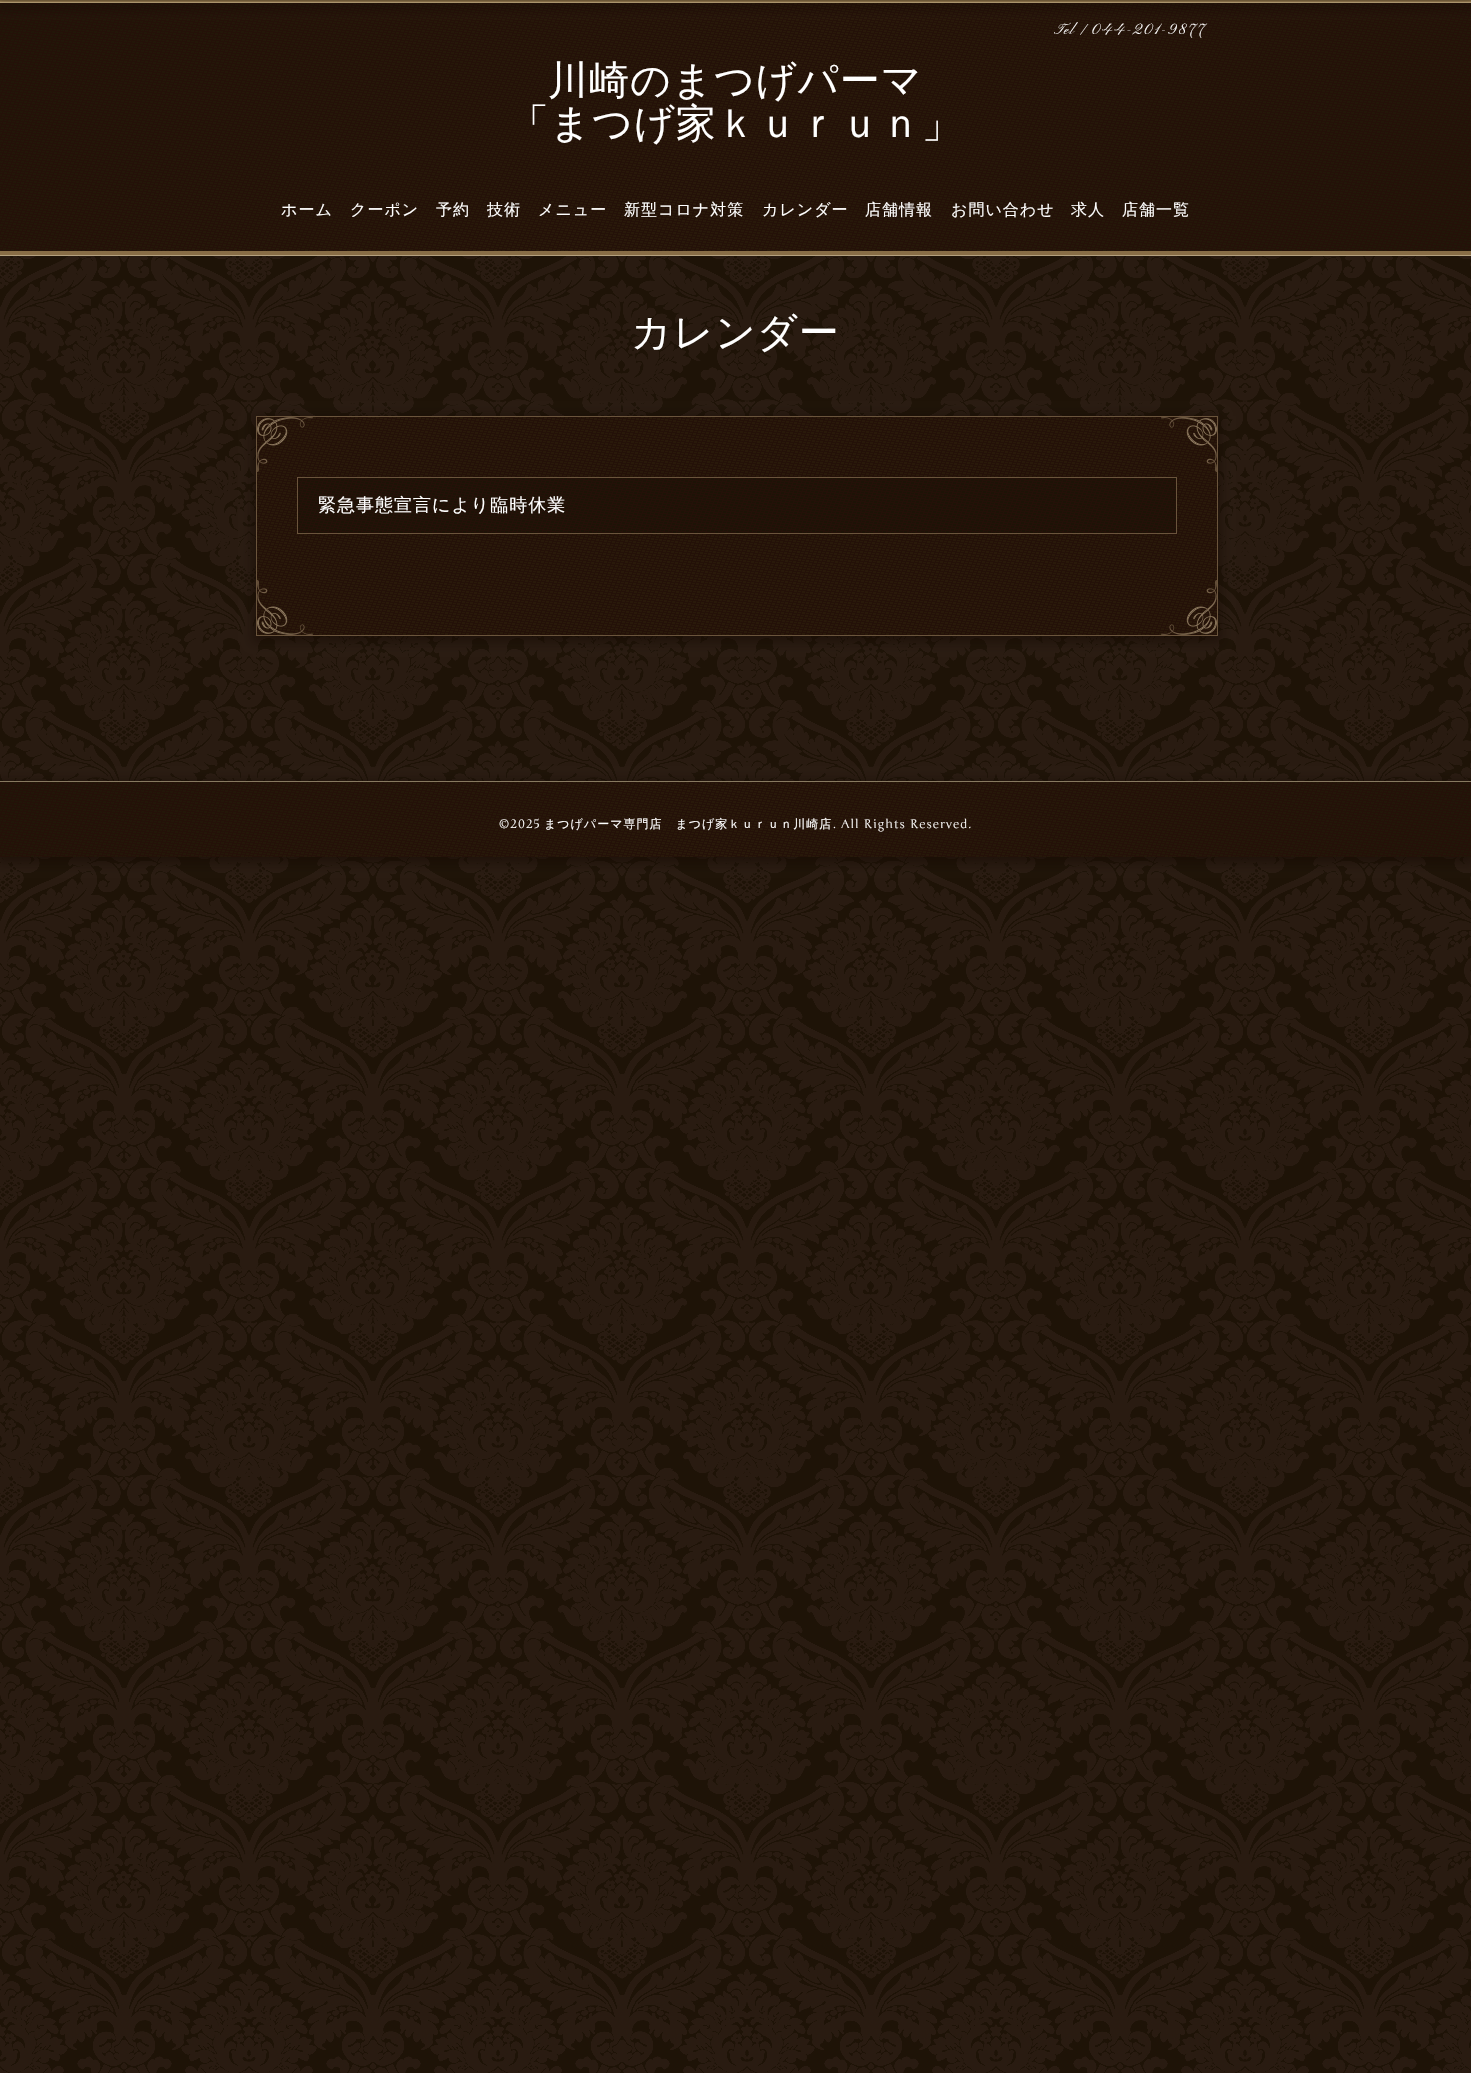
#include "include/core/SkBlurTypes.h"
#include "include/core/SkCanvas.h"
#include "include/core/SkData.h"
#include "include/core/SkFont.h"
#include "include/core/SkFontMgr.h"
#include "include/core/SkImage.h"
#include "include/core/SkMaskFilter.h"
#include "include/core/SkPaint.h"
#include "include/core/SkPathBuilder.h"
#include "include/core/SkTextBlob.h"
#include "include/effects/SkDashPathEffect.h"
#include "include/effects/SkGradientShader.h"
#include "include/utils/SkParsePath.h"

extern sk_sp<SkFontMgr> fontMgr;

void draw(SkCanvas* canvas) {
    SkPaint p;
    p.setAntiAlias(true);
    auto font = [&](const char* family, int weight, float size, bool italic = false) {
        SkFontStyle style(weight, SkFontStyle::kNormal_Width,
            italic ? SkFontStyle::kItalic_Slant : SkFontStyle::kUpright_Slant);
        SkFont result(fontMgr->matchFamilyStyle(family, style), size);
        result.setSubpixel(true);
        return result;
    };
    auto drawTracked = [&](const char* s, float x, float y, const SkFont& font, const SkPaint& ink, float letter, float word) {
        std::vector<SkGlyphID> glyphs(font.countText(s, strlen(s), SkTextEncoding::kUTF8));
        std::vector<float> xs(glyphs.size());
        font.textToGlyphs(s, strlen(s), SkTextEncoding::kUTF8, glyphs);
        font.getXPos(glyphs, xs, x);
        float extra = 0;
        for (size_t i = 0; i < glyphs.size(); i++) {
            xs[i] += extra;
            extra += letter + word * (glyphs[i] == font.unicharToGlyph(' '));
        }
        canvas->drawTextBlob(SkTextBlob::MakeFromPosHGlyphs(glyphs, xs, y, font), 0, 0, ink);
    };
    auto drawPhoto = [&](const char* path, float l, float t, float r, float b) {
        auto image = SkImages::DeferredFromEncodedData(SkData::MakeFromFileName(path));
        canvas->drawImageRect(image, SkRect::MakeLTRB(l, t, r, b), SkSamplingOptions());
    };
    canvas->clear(0xFF1E1307);
    drawPhoto("media/1.png", 0, 256, 1471, 2073);
    drawPhoto("media/2.png", 0, 3, 1471, 251);
    p.setColor(0xFF7E6741);
    canvas->drawRect(SkRect::MakeLTRB(0, 0, 1471, 1), p);
    p.setColor(0xFF9E8356);
    canvas->drawRect(SkRect::MakeLTRB(0, 1, 1471, 2), p);
    p.setColor(0x80140802);
    p.setMaskFilter(SkMaskFilter::MakeBlur(kNormal_SkBlurStyle, 5));
    canvas->drawRect(SkRect::MakeLTRB(-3, 2, 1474, 9), p);
    p.setMaskFilter(nullptr);
    p.setColor(0xFFA9936C);
    canvas->drawRect(SkRect::MakeLTRB(0, 2, 1471, 3), p);
    auto font1 = font("Pinyon Script", 400, 15);
    p.setColor(0xFFFFFFFF);
    drawTracked("Tel / 044-201-9877", 1054, 34, font1, p, 1.5f, 0);
    auto font2 = font("WenQuanYi Zen Hei", 500, 40);
    drawTracked("川崎のまつげパーマ", 548, 94, font2, p, 1, 0);
    drawTracked("「まつげ家ｋｕｒｕｎ」", 509, 137, font2, p, 1, 0);
    auto font3 = font("WenQuanYi Zen Hei", 500, 16);
    {
        const struct { const char* s; float x, y; } items[] = {
            {"ホーム", 281, 215},
            {"クーポン", 350, 215},
            {"予約", 436, 215},
            {"技術", 487, 215},
            {"メニュー", 538, 215},
            {"新型コロナ対策", 624, 215},
            {"カレンダー", 762, 215},
            {"店舗情報", 865, 215},
            {"お問い合わせ", 951, 215},
            {"求人", 1071, 215},
            {"店舗一覧", 1122, 215},
        };
        for (auto [s, x, y] : items) {
            drawTracked(s, x, y, font3, p, 1, 0);
        }
    }
    p.setColor(0xFF886D46);
    canvas->drawRect(SkRect::MakeLTRB(0, 251, 1471, 255), p);
    p.setColor(0xFFB4A07E);
    canvas->drawRect(SkRect::MakeLTRB(0, 255, 1471, 256), p);
    p.setColor(0xFFFFFFFF);
    drawTracked("カレンダー", 631, 346, font2, p, 1, 0);
    p.setColor(0x80140802);
    p.setMaskFilter(SkMaskFilter::MakeBlur(kNormal_SkBlurStyle, 5));
    canvas->drawRect(SkRect::MakeLTRB(253, 416, 1221, 642), p);
    p.setMaskFilter(nullptr);
    p.setColor(0xFF29190A);
    canvas->drawRect(SkRect::MakeLTRB(257, 417, 1217, 635), p);
    drawPhoto("media/3.png", 257, 417, 1217, 635);
    p.setStyle(SkPaint::kStroke_Style);
    p.setStrokeWidth(1);
    p.setColor(0xFF6A543C);
    canvas->drawRect(SkRect::MakeLTRB(256.5f, 416.5f, 1217.5f, 635.5f), p);
    drawPhoto("media/4.png", 257, 417, 313, 472);
    drawPhoto("media/5.png", 1161, 417, 1217, 472);
    p.setStyle(SkPaint::kFill_Style);
    p.setColor(0xFF1D1306);
    canvas->drawRect(SkRect::MakeLTRB(298, 478, 1176, 533), p);
    drawPhoto("media/6.png", 298, 478, 1176, 533);
    p.setStyle(SkPaint::kStroke_Style);
    p.setColor(0xFF6A543C);
    canvas->drawRect(SkRect::MakeLTRB(297.5f, 477.5f, 1176.5f, 533.5f), p);
    auto font4 = font("WenQuanYi Zen Hei", 500, 18);
    p.setStyle(SkPaint::kFill_Style);
    p.setColor(0xFFFFFFFF);
    drawTracked("緊急事態宣言により臨時休業", 318, 511, font4, p, 1, 0);
    drawPhoto("media/7.png", 257, 580, 313, 635);
    drawPhoto("media/8.png", 1161, 580, 1217, 635);
    p.setColor(0x80140802);
    p.setMaskFilter(SkMaskFilter::MakeBlur(kNormal_SkBlurStyle, 5));
    canvas->drawRect(SkRect::MakeLTRB(-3, 781, 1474, 863), p);
    p.setMaskFilter(nullptr);
    drawPhoto("media/9.png", 0, 782, 1471, 857);
    p.setColor(0xFF877960);
    canvas->drawRect(SkRect::MakeLTRB(0, 781, 1471, 782), p);
    auto font5 = font("Junge", 400, 12);
    p.setColor(0xFFFFFFFF);
    drawTracked("©2025", 499, 828, font5, p, 1, 0);
    auto font6 = font("WenQuanYi Zen Hei", 500, 12);
    drawTracked("まつげパーマ専門店　まつげ家ｋｕｒｕｎ川崎店", 544, 828, font6, p, 1, 0);
    drawTracked(". All Rights Reserved.", 833, 828, font5, p, 1, 0);
}
